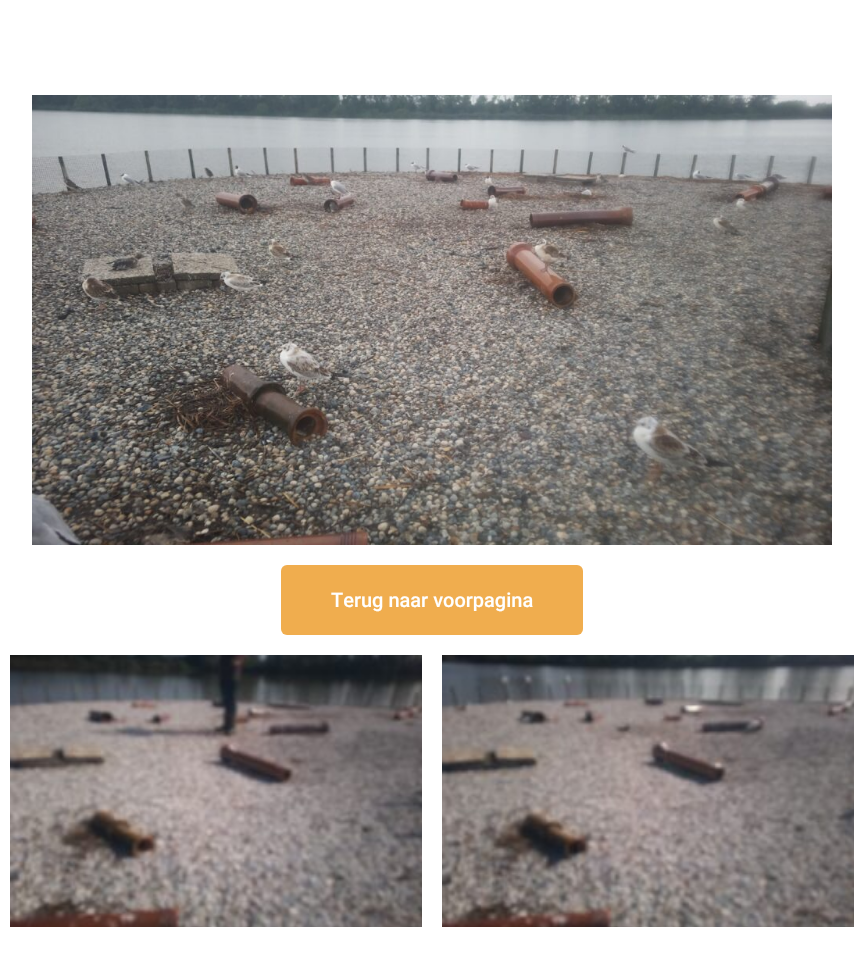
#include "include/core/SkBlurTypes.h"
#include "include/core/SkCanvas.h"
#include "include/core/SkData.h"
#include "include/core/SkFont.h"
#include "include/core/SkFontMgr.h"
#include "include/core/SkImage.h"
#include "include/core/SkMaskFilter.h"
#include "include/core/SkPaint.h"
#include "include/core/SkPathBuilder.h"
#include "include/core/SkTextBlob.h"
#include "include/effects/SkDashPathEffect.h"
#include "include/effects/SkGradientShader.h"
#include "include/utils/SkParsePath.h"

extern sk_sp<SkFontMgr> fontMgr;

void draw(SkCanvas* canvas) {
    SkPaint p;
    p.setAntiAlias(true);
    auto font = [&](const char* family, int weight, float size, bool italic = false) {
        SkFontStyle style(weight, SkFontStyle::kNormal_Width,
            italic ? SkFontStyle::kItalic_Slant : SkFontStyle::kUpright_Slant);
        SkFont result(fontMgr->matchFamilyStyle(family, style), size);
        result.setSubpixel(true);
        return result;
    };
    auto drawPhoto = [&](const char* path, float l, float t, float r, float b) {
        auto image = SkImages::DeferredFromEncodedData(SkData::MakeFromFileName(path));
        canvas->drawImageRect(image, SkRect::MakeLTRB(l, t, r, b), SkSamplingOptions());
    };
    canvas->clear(0xFFFFFFFF);
    drawPhoto("media/1.png", 32, 95, 832, 545);
    p.setColor(0xFFF0AD4E);
    canvas->drawRoundRect(SkRect::MakeLTRB(281, 565, 583, 635), 6, 6, p);
    auto font1 = font("Roboto", 500, 20);
    p.setColor(0xFFFFFFFF);
    canvas->drawString("Terug naar voorpagina", 331, 607, font1, p);
    drawPhoto("media/2.png", 10, 655, 422, 927);
    drawPhoto("media/3.png", 442, 655, 854, 927);
}
